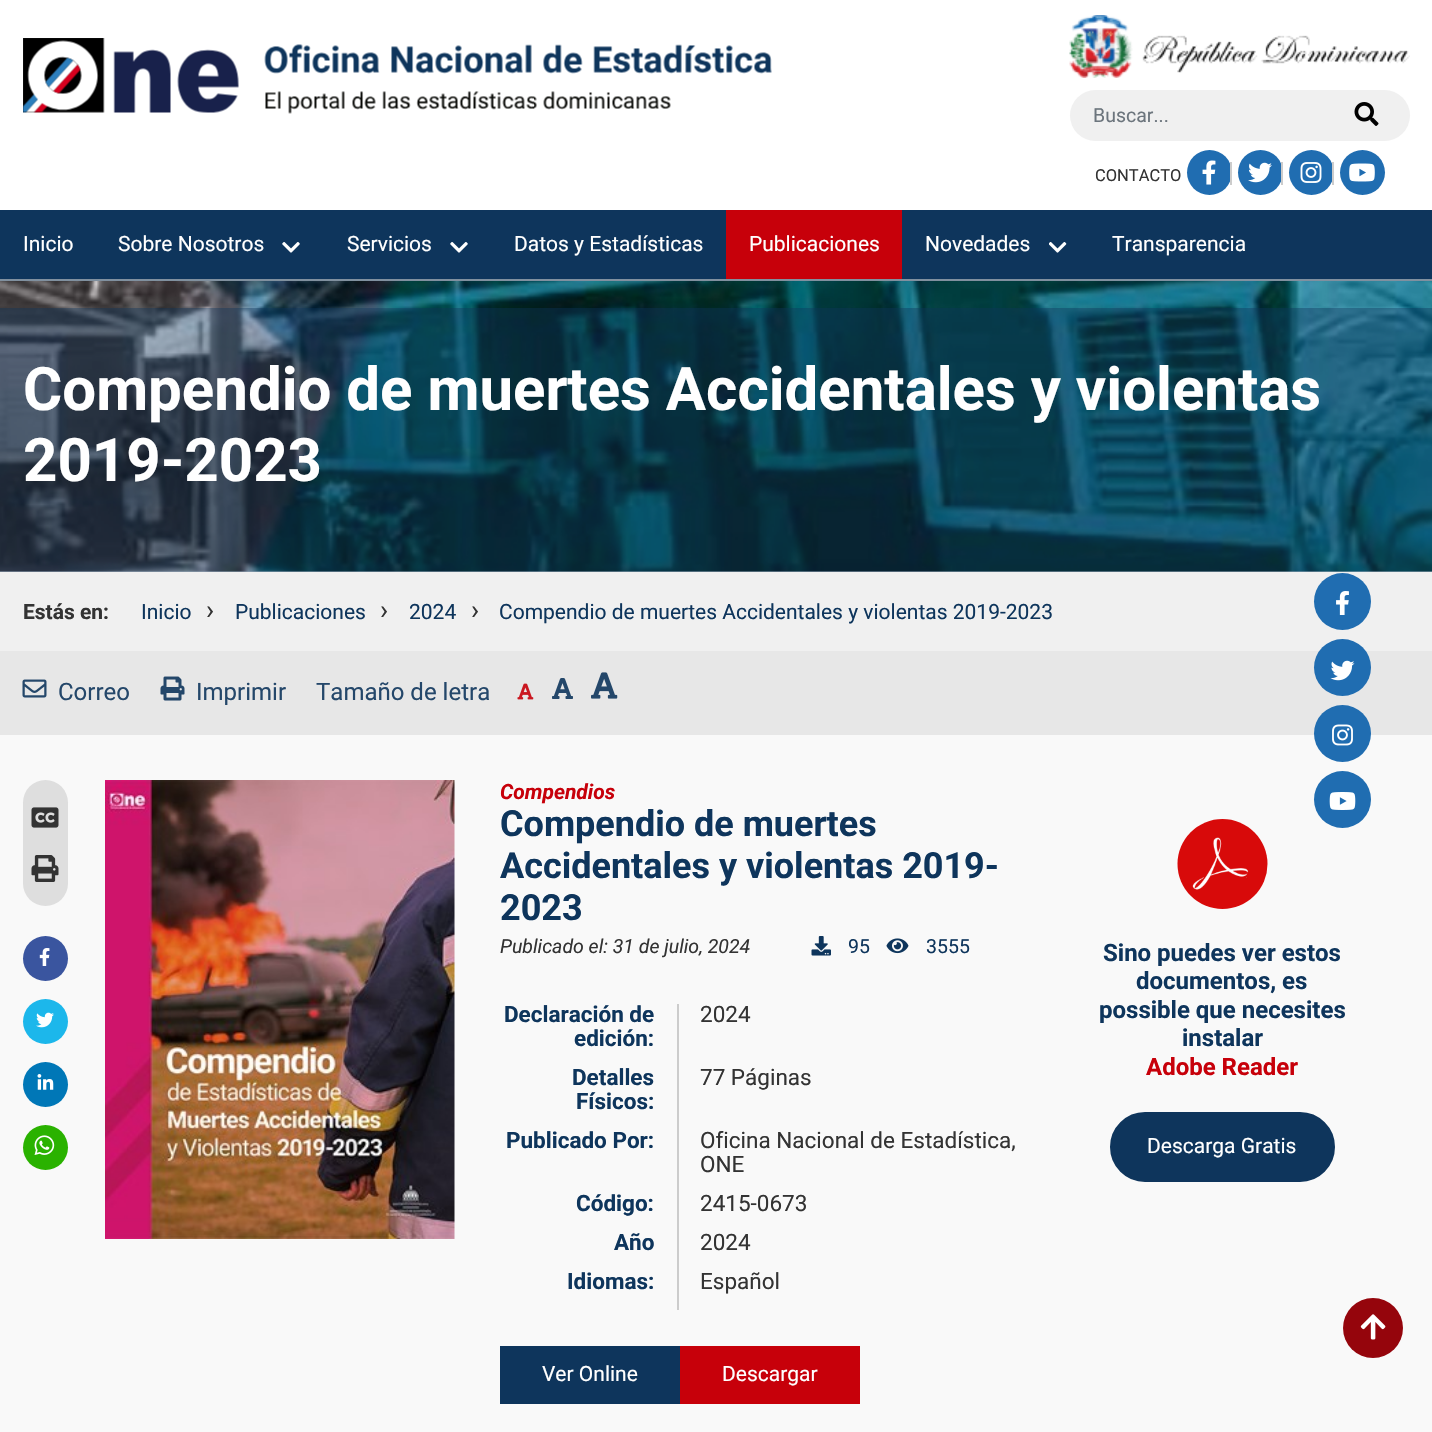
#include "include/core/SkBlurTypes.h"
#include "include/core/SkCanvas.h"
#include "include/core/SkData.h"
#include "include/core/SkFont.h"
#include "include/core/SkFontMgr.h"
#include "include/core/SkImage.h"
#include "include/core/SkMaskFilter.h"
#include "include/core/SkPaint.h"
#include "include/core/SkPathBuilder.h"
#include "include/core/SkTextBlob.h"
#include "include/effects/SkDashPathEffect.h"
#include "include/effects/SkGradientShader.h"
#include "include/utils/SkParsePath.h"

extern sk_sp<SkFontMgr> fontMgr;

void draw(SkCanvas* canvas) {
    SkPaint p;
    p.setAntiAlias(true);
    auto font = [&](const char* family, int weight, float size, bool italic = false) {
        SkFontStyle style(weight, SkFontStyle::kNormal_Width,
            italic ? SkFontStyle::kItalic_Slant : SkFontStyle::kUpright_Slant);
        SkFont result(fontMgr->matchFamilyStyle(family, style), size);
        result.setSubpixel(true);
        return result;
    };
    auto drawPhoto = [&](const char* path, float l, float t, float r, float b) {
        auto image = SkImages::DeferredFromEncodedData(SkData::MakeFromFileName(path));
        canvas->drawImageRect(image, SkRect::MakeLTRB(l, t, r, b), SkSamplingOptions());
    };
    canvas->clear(0xFFF9F9F9);
    p.setColor(0xFF9BABBA);
    canvas->drawRect(SkRect::MakeLTRB(0, 571, 1432, 572), p);
    p.setColor(0xFFFFFFFF);
    canvas->drawRect(SkRect::MakeLTRB(0, 0, 1432, 210), p);
    drawPhoto("media/1.png", 23, 38, 772, 114);
    drawPhoto("media/2.png", 1069, 15, 1410, 78);
    p.setColor(0xFFF0F0F0);
    canvas->drawRoundRect(SkRect::MakeLTRB(1070, 90, 1410, 141), 25.5f, 25.5f, p);
    auto font1 = font("Roboto", 400, 19.5f);
    p.setColor(0xFF6C757D);
    canvas->drawString("Buscar...", 1093, 122, font1, p);
    drawPhoto("media/3.png", 1354, 102, 1379, 126);
    auto font2 = font("Roboto", 400, 16.5f);
    p.setColor(0xFF333333);
    canvas->drawString("CONTACTO", 1095, 181, font2, p);
    p.setColor(0xFF206DB1);
    canvas->drawCircle(1209.5f, 172.5f, 22.5f, p);
    p.setColor(0xFFCCCCCC);
    canvas->drawRect(SkRect::MakeLTRB(1230, 162, 1232, 185), p);
    drawPhoto("media/4.png", 1202, 160, 1216, 185);
    p.setColor(0xFF206DB1);
    canvas->drawCircle(1260.5f, 172.5f, 22.5f, p);
    p.setColor(0xFFCCCCCC);
    canvas->drawRect(SkRect::MakeLTRB(1281, 162, 1283, 185), p);
    drawPhoto("media/5.png", 1248, 162, 1272, 183);
    p.setColor(0xFF206DB1);
    canvas->drawCircle(1311.5f, 172.5f, 22.5f, p);
    p.setColor(0xFFCCCCCC);
    canvas->drawRect(SkRect::MakeLTRB(1332, 162, 1334, 185), p);
    drawPhoto("media/6.png", 1300, 162, 1322, 183);
    p.setColor(0xFF206DB1);
    canvas->drawCircle(1362.5f, 172.5f, 22.5f, p);
    drawPhoto("media/7.png", 1349, 163, 1375, 182);
    p.setColor(0xFF0E355C);
    canvas->drawRect(SkRect::MakeLTRB(0, 210, 1432, 279), p);
    p.setColor(0xFF80909F);
    canvas->drawRect(SkRect::MakeLTRB(0, 279, 1432, 281), p);
    auto font3 = font("Roboto", 400, 21);
    p.setColor(0xFFFFFFFF);
    canvas->drawString("Inicio", 23, 251, font3, p);
    canvas->drawString("Sobre Nosotros", 118, 251, font3, p);
    drawPhoto("media/8.png", 282, 242, 300, 253);
    canvas->drawString("Servicios", 347, 251, font3, p);
    drawPhoto("media/8.png", 450, 242, 468, 253);
    canvas->drawString("Datos y Estadísticas", 514, 251, font3, p);
    p.setColor(0xFFC7000A);
    canvas->drawRect(SkRect::MakeLTRB(726, 210, 902, 279), p);
    p.setColor(0xFFFFFFFF);
    canvas->drawString("Publicaciones", 749, 251, font3, p);
    canvas->drawString("Novedades", 925, 251, font3, p);
    drawPhoto("media/9.png", 1049, 242, 1067, 253);
    canvas->drawString("Transparencia", 1112, 251, font3, p);
    drawPhoto("media/10.png", 0, 281, 1432, 572);
    auto font4 = font("Roboto", 700, 60);
    canvas->drawString("Compendio de muertes Accidentales y violentas", 23, 410, font4, p);
    canvas->drawString("2019-2023", 23, 481, font4, p);
    p.setColor(0xFFF0F0F0);
    canvas->drawRect(SkRect::MakeLTRB(0, 572, 1432, 651), p);
    auto font5 = font("Roboto", 700, 21);
    p.setColor(0xFF333333);
    canvas->drawString("Estás en:", 23, 619, font5, p);
    p.setColor(0xFF0E355C);
    canvas->drawString("Inicio", 141, 619, font3, p);
    auto font6 = font("Roboto", 400, 27);
    p.setColor(0xFF333333);
    canvas->drawString("›", 206, 619, font6, p);
    p.setColor(0xFF0E355C);
    canvas->drawString("Publicaciones", 235, 619, font3, p);
    p.setColor(0xFF333333);
    canvas->drawString("›", 380, 619, font6, p);
    p.setColor(0xFF0E355C);
    canvas->drawString("2024", 409, 619, font3, p);
    p.setColor(0xFF333333);
    canvas->drawString("›", 471, 619, font6, p);
    p.setColor(0xFF0E355C);
    canvas->drawString("Compendio de muertes Accidentales y violentas 2019-2023", 499, 619, font3, p);
    p.setColor(0xFFE7E7E7);
    canvas->drawRect(SkRect::MakeLTRB(0, 651, 1432, 735), p);
    drawPhoto("media/11.png", 22, 679, 47, 698);
    auto font7 = font("Roboto", 400, 24);
    p.setColor(0xFF24476A);
    canvas->drawString("Correo", 58, 700, font7, p);
    drawPhoto("media/12.png", 160, 676, 185, 701);
    canvas->drawString("Imprimir", 196, 700, font7, p);
    canvas->drawString("Tamaño de letra", 316, 700, font7, p);
    drawPhoto("media/13.png", 517, 683, 534, 700);
    drawPhoto("media/14.png", 552, 678, 573, 699);
    drawPhoto("media/15.png", 591, 672, 618, 699);
    p.setColor(0xFFDEDEDE);
    canvas->drawRoundRect(SkRect::MakeLTRB(23, 780, 68, 906), 22.5f, 22.5f, p);
    drawPhoto("media/16.png", 31, 807, 59, 828);
    drawPhoto("media/17.png", 31, 855, 59, 882);
    p.setColor(0xFF3A559F);
    canvas->drawCircle(45.5f, 958.5f, 22.5f, p);
    drawPhoto("media/18.png", 39, 948, 50, 966);
    p.setColor(0xFF1CB7EB);
    canvas->drawCircle(45.5f, 1021.5f, 22.5f, p);
    drawPhoto("media/19.png", 36, 1012, 54, 1028);
    p.setColor(0xFF0077B7);
    canvas->drawCircle(45.5f, 1084.5f, 22.5f, p);
    drawPhoto("media/20.png", 37, 1074, 54, 1090);
    p.setColor(0xFF2AB200);
    canvas->drawCircle(45.5f, 1147.5f, 22.5f, p);
    drawPhoto("media/21.png", 34, 1135, 55, 1155);
    drawPhoto("media/22.png", 105, 780, 455, 1239);
    auto font8 = font("Roboto", 700, 21, true);
    p.setColor(0xFFC7000A);
    canvas->drawString("Compendios", 500, 799, font8, p);
    auto font9 = font("Roboto", 700, 36);
    p.setColor(0xFF0E355C);
    {
        const struct { const char* s; float x, y; } items[] = {
            {"Compendio de muertes", 500, 836},
            {"Accidentales y violentas 2019-", 500, 878},
            {"2023", 500, 920},
        };
        for (auto [s, x, y] : items) {
            canvas->drawString(s, x, y, font9, p);
        }
    }
    auto font10 = font("Roboto", 400, 19.5f, true);
    p.setColor(0xFF333333);
    canvas->drawString("Publicado el: 31 de julio, 2024", 500, 953, font10, p);
    drawPhoto("media/23.png", 811, 936, 831, 956);
    p.setColor(0xFF0E355C);
    canvas->drawString("95", 848, 953, font1, p);
    drawPhoto("media/24.png", 886, 938, 909, 954);
    canvas->drawString("3555", 926, 953, font1, p);
    auto font11 = font("Roboto", 700, 22.5f);
    canvas->drawString("Declaración de", 504, 1022, font11, p);
    canvas->drawString("edición:", 574, 1046, font11, p);
    p.setColor(0xFFCCCCCC);
    canvas->drawRect(SkRect::MakeLTRB(677, 1004, 679, 1310), p);
    auto font12 = font("Roboto", 400, 22.5f);
    p.setColor(0xFF333333);
    canvas->drawString("2024", 700, 1022, font12, p);
    p.setColor(0xFF0E355C);
    canvas->drawString("Detalles", 572, 1085, font11, p);
    canvas->drawString("Físicos:", 576, 1109, font11, p);
    p.setColor(0xFF333333);
    canvas->drawString("77 Páginas", 700, 1085, font12, p);
    p.setColor(0xFF0E355C);
    canvas->drawString("Publicado Por:", 506, 1148, font11, p);
    p.setColor(0xFF333333);
    canvas->drawString("Oficina Nacional de Estadística,", 700, 1148, font12, p);
    canvas->drawString("ONE", 700, 1172, font12, p);
    p.setColor(0xFF0E355C);
    canvas->drawString("Código:", 576, 1211, font11, p);
    p.setColor(0xFF333333);
    canvas->drawString("2415-0673", 700, 1211, font12, p);
    p.setColor(0xFF0E355C);
    canvas->drawString("Año", 614, 1250, font11, p);
    p.setColor(0xFF333333);
    canvas->drawString("2024", 700, 1250, font12, p);
    p.setColor(0xFF0E355C);
    canvas->drawString("Idiomas:", 567, 1289, font11, p);
    p.setColor(0xFF333333);
    canvas->drawString("Español", 700, 1289, font12, p);
    p.setColor(0xFF0E355C);
    canvas->drawRect(SkRect::MakeLTRB(500, 1346, 680, 1404), p);
    p.setColor(0xFFFFFFFF);
    canvas->drawString("Ver Online", 542, 1381, font3, p);
    p.setColor(0xFFC7000A);
    canvas->drawRect(SkRect::MakeLTRB(680, 1346, 860, 1404), p);
    p.setColor(0xFFFFFFFF);
    canvas->drawString("Descargar", 722, 1381, font3, p);
    drawPhoto("media/25.png", 1177, 819, 1268, 909);
    auto font13 = font("Roboto", 700, 24);
    p.setColor(0xFF0E355C);
    {
        const struct { const char* s; float x, y; } items[] = {
            {"Sino puedes ver estos", 1103, 961},
            {"documentos, es", 1136, 989},
            {"possible que necesites", 1099, 1018},
            {"instalar", 1182, 1046},
        };
        for (auto [s, x, y] : items) {
            canvas->drawString(s, x, y, font13, p);
        }
    }
    p.setColor(0xFFC7000A);
    canvas->drawString("Adobe Reader", 1146, 1075, font13, p);
    p.setColor(0xFF0E355C);
    canvas->drawRoundRect(SkRect::MakeLTRB(1111, 1113, 1334, 1181), 34, 34, p);
    p.setStyle(SkPaint::kStroke_Style);
    p.setStrokeWidth(2);
    canvas->drawRoundRect(SkRect::MakeLTRB(1111, 1113, 1334, 1181), 34, 34, p);
    p.setStyle(SkPaint::kFill_Style);
    p.setColor(0xFFFFFFFF);
    canvas->drawString("Descarga Gratis", 1147, 1153, font3, p);
    p.setColor(0xFF206DB1);
    canvas->drawCircle(1342.5f, 601.5f, 28.5f, p);
    drawPhoto("media/26.png", 1336, 591, 1349, 615);
    canvas->drawCircle(1342.5f, 667.5f, 28.5f, p);
    drawPhoto("media/27.png", 1330, 660, 1355, 681);
    canvas->drawCircle(1342.5f, 733.5f, 28.5f, p);
    drawPhoto("media/28.png", 1332, 724, 1353, 746);
    canvas->drawCircle(1342.5f, 799.5f, 28.5f, p);
    drawPhoto("media/29.png", 1329, 792, 1356, 810);
    p.setColor(0xFF95050C);
    canvas->drawCircle(1373, 1328, 30, p);
    drawPhoto("media/30.png", 1360, 1314, 1386, 1340);
}
